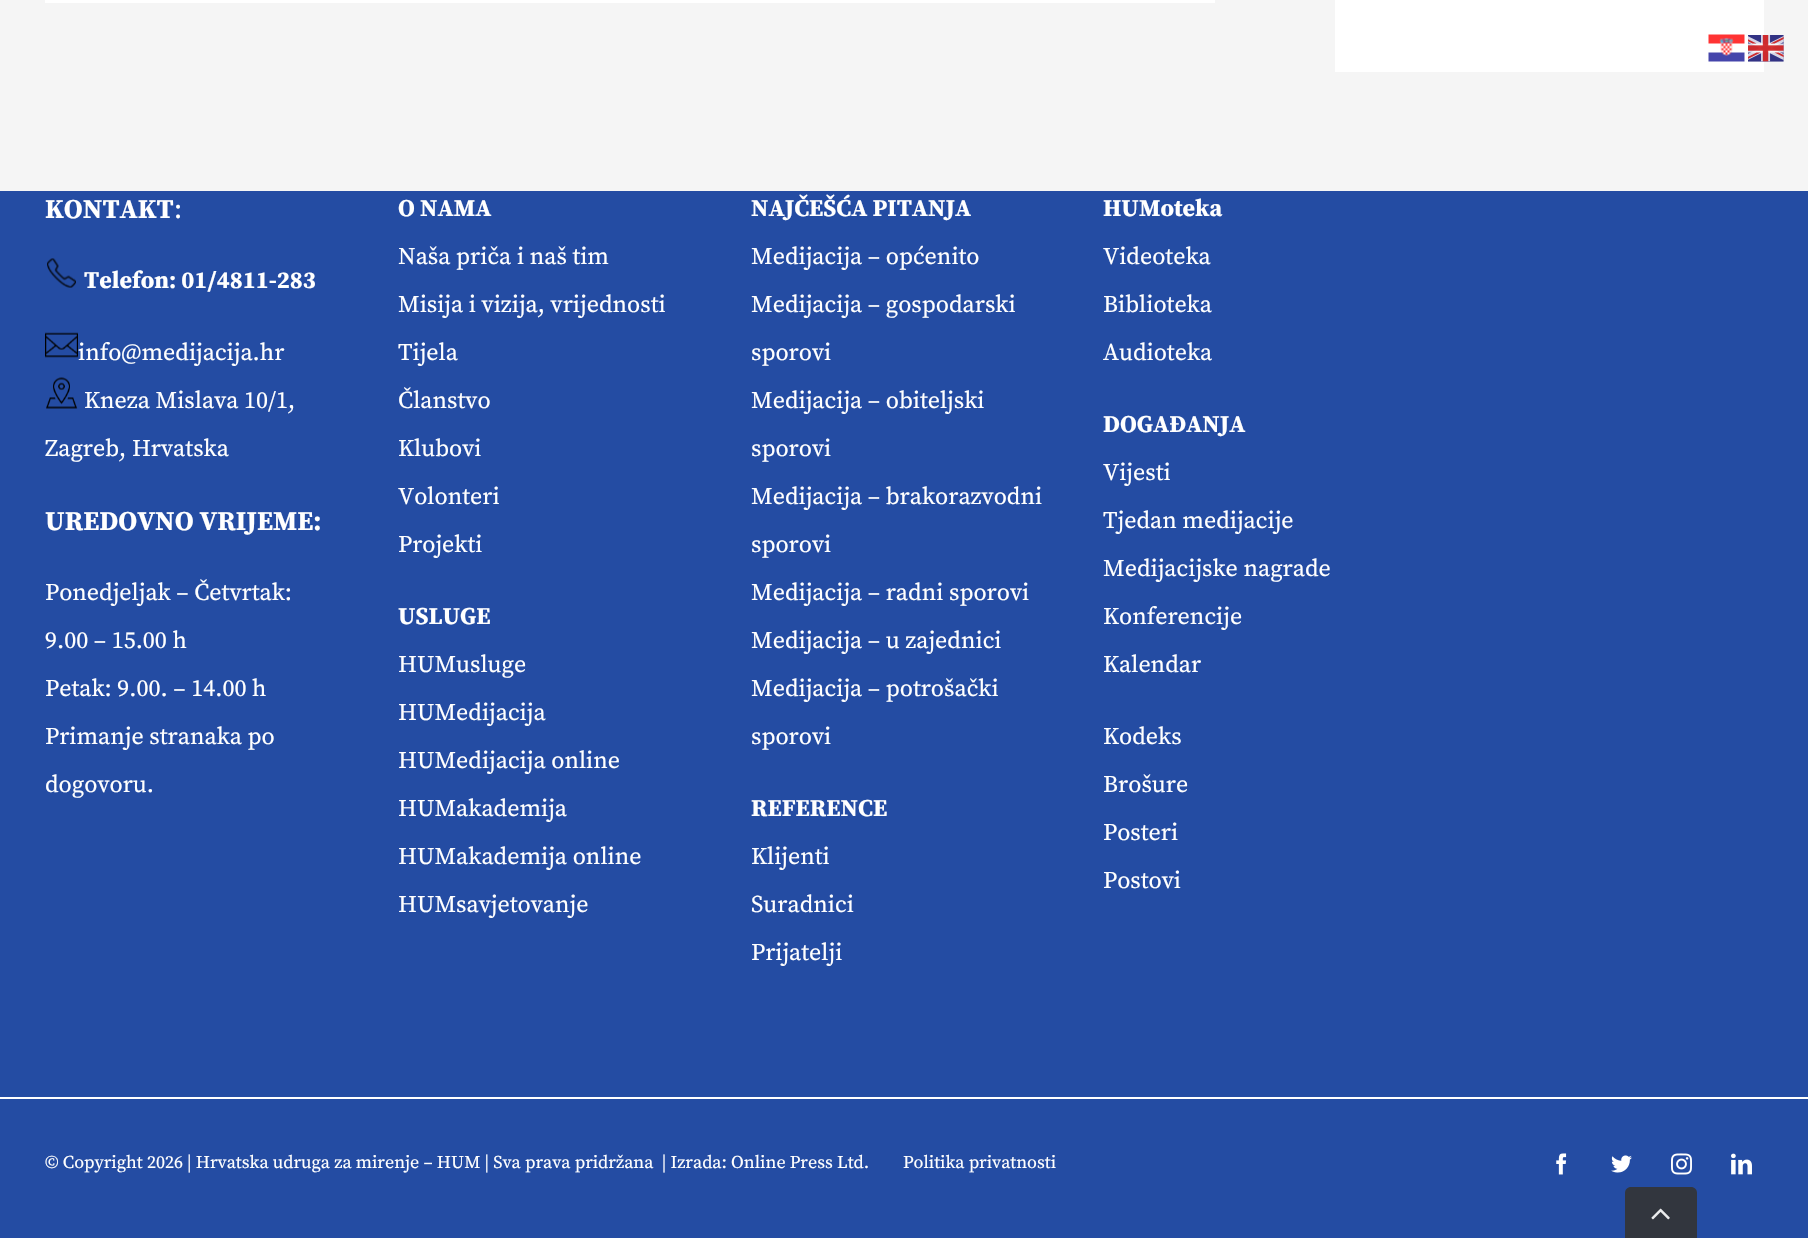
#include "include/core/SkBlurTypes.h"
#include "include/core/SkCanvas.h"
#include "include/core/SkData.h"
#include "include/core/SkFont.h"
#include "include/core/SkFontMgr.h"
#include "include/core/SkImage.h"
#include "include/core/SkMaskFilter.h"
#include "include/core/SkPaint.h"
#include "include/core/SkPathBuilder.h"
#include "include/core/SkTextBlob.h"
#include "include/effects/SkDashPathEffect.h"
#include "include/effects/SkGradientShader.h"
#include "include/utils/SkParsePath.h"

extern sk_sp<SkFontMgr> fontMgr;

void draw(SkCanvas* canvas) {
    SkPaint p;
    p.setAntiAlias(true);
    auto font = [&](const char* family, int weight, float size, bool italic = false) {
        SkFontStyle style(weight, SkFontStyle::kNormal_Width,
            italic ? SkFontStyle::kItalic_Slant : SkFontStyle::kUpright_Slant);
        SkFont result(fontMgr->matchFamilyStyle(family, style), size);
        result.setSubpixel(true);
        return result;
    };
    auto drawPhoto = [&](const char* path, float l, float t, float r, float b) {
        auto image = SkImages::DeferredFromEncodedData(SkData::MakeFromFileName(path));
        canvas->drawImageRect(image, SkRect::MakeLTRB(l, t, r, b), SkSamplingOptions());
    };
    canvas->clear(0xFF244CA3);
    p.setColor(0xFFF5F5F5);
    canvas->drawRect(SkRect::MakeLTRB(0, 0, 1808, 191), p);
    p.setColor(0xFFFFFFFF);
    canvas->drawRect(SkRect::MakeLTRB(1335, 0, 1764, 72), p);
    drawPhoto("media/1.png", 1708, 34, 1745, 62);
    drawPhoto("media/2.png", 1748, 35, 1784, 62);
    canvas->drawRect(SkRect::MakeLTRB(45, 0, 1215, 3), p);
    auto font1 = font("Source Serif Pro", 700, 27);
    canvas->drawString("KONTAKT", 45, 218, font1, p);
    auto font2 = font("Source Serif Pro", 400, 27);
    canvas->drawString(":", 174, 218, font2, p);
    drawPhoto("media/3.png", 47, 258, 76, 288);
    auto font3 = font("Source Serif Pro", 700, 24);
    canvas->drawString("Telefon: 01/4811-283", 84, 288, font3, p);
    drawPhoto("media/4.png", 45, 332, 78, 358);
    auto font4 = font("Source Serif Pro", 400, 24);
    canvas->drawString("info@medijacija.hr", 78, 360, font4, p);
    drawPhoto("media/5.png", 46, 377, 78, 409);
    canvas->drawString("Kneza Mislava 10/1,", 84, 408, font4, p);
    canvas->drawString("Zagreb, Hrvatska", 45, 456, font4, p);
    canvas->drawString("UREDOVNO VRIJEME:", 45, 530, font1, p);
    {
        const struct { const char* s; float x, y; } items[] = {
            {"Ponedjeljak – Četvrtak:", 45, 600},
            {"9.00 – 15.00 h", 45, 648},
            {"Petak: 9.00. – 14.00 h", 45, 696},
            {"Primanje stranaka po", 45, 744},
            {"dogovoru.", 45, 792},
        };
        for (auto [s, x, y] : items) {
            canvas->drawString(s, x, y, font4, p);
        }
    }
    canvas->drawString("O NAMA", 398, 216, font3, p);
    {
        const struct { const char* s; float x, y; } items[] = {
            {"Naša priča i naš tim", 398, 264},
            {"Misija i vizija, vrijednosti", 398, 312},
            {"Tijela", 398, 360},
            {"Članstvo", 398, 408},
            {"Klubovi", 398, 456},
            {"Volonteri", 398, 504},
            {"Projekti", 398, 552},
        };
        for (auto [s, x, y] : items) {
            canvas->drawString(s, x, y, font4, p);
        }
    }
    canvas->drawString("USLUGE", 398, 624, font3, p);
    {
        const struct { const char* s; float x, y; } items[] = {
            {"HUMusluge", 398, 672},
            {"HUMedijacija", 398, 720},
            {"HUMedijacija online", 398, 768},
            {"HUMakademija", 398, 816},
            {"HUMakademija online", 398, 864},
            {"HUMsavjetovanje", 398, 912},
        };
        for (auto [s, x, y] : items) {
            canvas->drawString(s, x, y, font4, p);
        }
    }
    canvas->drawString("NAJČEŠĆA PITANJA", 751, 216, font3, p);
    {
        const struct { const char* s; float x, y; } items[] = {
            {"Medijacija – općenito", 751, 264},
            {"Medijacija – gospodarski", 751, 312},
            {"sporovi", 751, 360},
            {"Medijacija – obiteljski", 751, 408},
            {"sporovi", 751, 456},
            {"Medijacija – brakorazvodni", 751, 504},
            {"sporovi", 751, 552},
            {"Medijacija – radni sporovi", 751, 600},
            {"Medijacija – u zajednici", 751, 648},
            {"Medijacija – potrošački", 751, 696},
            {"sporovi", 751, 744},
        };
        for (auto [s, x, y] : items) {
            canvas->drawString(s, x, y, font4, p);
        }
    }
    canvas->drawString("REFERENCE", 751, 816, font3, p);
    {
        const struct { const char* s; float x, y; } items[] = {
            {"Klijenti", 751, 864},
            {"Suradnici", 751, 912},
            {"Prijatelji", 751, 960},
        };
        for (auto [s, x, y] : items) {
            canvas->drawString(s, x, y, font4, p);
        }
    }
    canvas->drawString("HUMoteka", 1103, 216, font3, p);
    {
        const struct { const char* s; float x, y; } items[] = {
            {"Videoteka", 1103, 264},
            {"Biblioteka", 1103, 312},
            {"Audioteka", 1103, 360},
        };
        for (auto [s, x, y] : items) {
            canvas->drawString(s, x, y, font4, p);
        }
    }
    canvas->drawString("DOGAĐANJA", 1103, 432, font3, p);
    {
        const struct { const char* s; float x, y; } items[] = {
            {"Vijesti", 1103, 480},
            {"Tjedan medijacije", 1103, 528},
            {"Medijacijske nagrade", 1103, 576},
            {"Konferencije", 1103, 624},
            {"Kalendar", 1103, 672},
            {"Kodeks", 1103, 744},
            {"Brošure", 1103, 792},
            {"Posteri", 1103, 840},
            {"Postovi", 1103, 888},
        };
        for (auto [s, x, y] : items) {
            canvas->drawString(s, x, y, font4, p);
        }
    }
    canvas->drawRect(SkRect::MakeLTRB(0, 1097, 1808, 1099), p);
    auto font5 = font("Source Serif Pro", 400, 18);
    canvas->drawString("© Copyright 2026 | Hrvatska udruga za mirenje – HUM | Sva prava pridržana  | Izrada: Online Press Ltd.", 45, 1168, font5, p);
    canvas->drawString("Politika privatnosti", 903, 1168, font5, p);
    drawPhoto("media/6.png", 1556, 1153, 1567, 1175);
    drawPhoto("media/7.png", 1611, 1155, 1632, 1173);
    drawPhoto("media/8.png", 1671, 1153, 1692, 1175);
    drawPhoto("media/9.png", 1731, 1153, 1752, 1175);
    p.setColor(0xFF32363E);
    canvas->drawPath(SkPathBuilder().moveTo(1631, 1187).lineTo(1691, 1187).cubicTo(1694.5f, 1187, 1697, 1189.5f, 1697, 1193).lineTo(1697, 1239).lineTo(1625, 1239).lineTo(1625, 1193).cubicTo(1625, 1189.5f, 1627.5f, 1187, 1631, 1187).close().detach(), p);
    drawPhoto("media/10.png", 1651, 1208, 1670, 1220);
}
